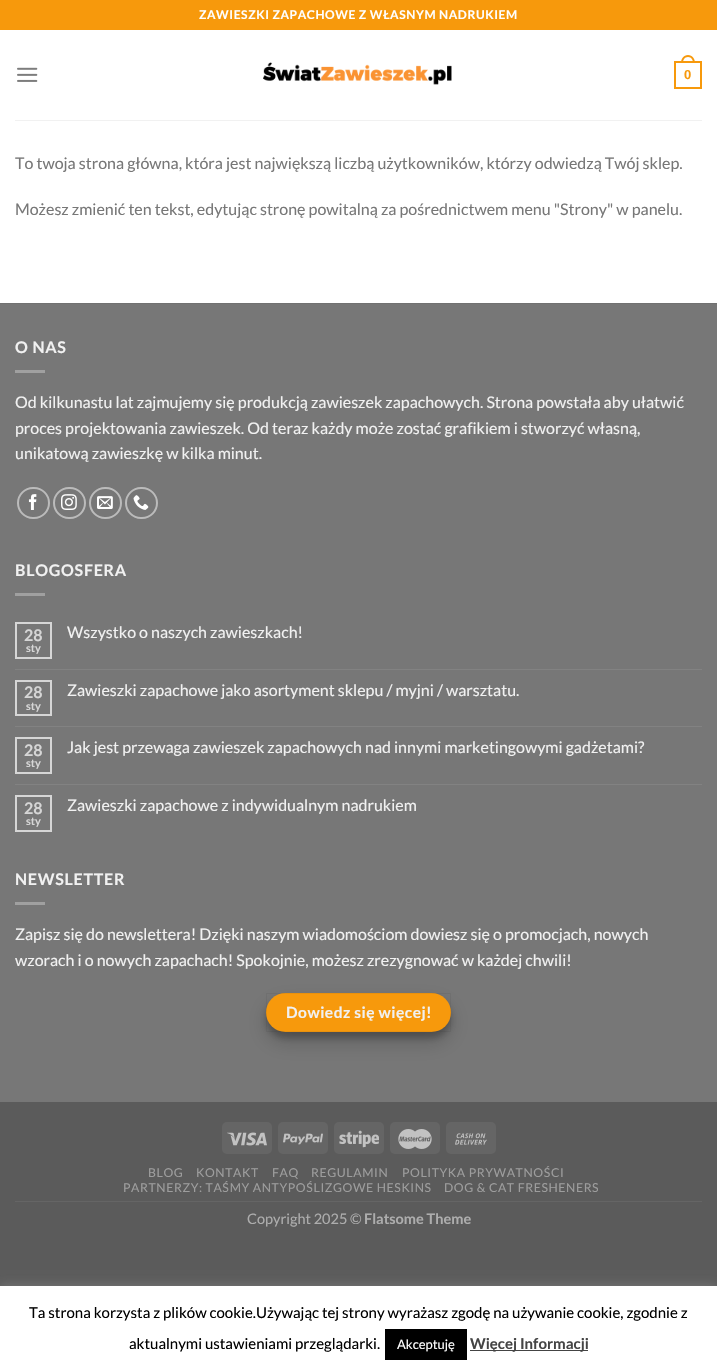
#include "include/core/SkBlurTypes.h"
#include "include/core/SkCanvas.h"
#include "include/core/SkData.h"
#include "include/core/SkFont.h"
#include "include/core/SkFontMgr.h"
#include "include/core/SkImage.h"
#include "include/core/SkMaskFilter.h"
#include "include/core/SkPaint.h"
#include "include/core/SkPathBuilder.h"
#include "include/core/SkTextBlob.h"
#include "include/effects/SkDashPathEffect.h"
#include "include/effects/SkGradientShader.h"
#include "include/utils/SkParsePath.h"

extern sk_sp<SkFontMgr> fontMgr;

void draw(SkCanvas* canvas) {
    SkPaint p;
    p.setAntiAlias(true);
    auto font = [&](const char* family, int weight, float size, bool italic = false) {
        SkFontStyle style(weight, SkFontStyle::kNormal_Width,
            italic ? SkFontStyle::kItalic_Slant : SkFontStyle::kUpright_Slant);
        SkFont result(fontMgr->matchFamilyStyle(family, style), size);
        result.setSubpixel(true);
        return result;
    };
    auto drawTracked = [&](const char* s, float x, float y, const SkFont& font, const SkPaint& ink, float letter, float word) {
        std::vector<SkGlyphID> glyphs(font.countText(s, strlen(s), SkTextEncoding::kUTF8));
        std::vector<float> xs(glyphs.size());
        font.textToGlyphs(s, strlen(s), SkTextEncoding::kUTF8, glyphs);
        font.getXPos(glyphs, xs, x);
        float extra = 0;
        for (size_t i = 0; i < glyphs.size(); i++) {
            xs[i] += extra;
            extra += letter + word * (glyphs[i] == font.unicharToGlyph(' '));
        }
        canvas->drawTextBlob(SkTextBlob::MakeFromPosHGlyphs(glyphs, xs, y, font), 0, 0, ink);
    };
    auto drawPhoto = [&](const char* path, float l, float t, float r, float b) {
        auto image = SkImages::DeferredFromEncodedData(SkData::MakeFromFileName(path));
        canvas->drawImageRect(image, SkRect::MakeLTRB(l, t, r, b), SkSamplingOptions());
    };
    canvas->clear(0xFF5B5B5B);
    p.setColor(0xFFFFFFFF);
    canvas->drawRect(SkRect::MakeLTRB(0, 30, 717, 303), p);
    p.setColor(0xFFF7990C);
    canvas->drawRect(SkRect::MakeLTRB(0, 0, 717, 30), p);
    auto font1 = font("Lato", 700, 12);
    p.setColor(0xFFFFFFFF);
    drawTracked("ZAWIESZKI ZAPACHOWE Z WŁASNYM NADRUKIEM", 199, 19, font1, p, 0.6f, 0);
    drawPhoto("media/1.png", 17, 67, 38, 82);
    drawPhoto("media/2.png", 263, 62, 452, 85);
    p.setStyle(SkPaint::kStroke_Style);
    p.setStrokeWidth(2);
    p.setColor(0xFFF7990C);
    canvas->drawRect(SkRect::MakeLTRB(675, 62, 701, 88), p);
    p.setStyle(SkPaint::kFill_Style);
    canvas->drawPath(SkPathBuilder(SkPathFillType::kEvenOdd).moveTo(688, 55).cubicTo(692.5f, 55, 695, 59, 695, 63).lineTo(681, 63).cubicTo(681, 59, 683.5f, 55, 688, 55).close().moveTo(688, 57).cubicTo(691.5f, 57, 693, 60, 693, 63).lineTo(683, 63).cubicTo(683, 60, 684.5f, 57, 688, 57).close().detach(), p);
    auto font2 = font("Liberation Sans", 700, 13);
    canvas->drawString("0", 684, 79, font2, p);
    p.setColor(0xFFF1F1F1);
    canvas->drawRect(SkRect::MakeLTRB(15, 120, 702, 121), p);
    auto font3 = font("Lato", 400, 16);
    p.setColor(0xFF777777);
    canvas->drawString("To twoja strona główna, która jest największą liczbą użytkowników, którzy odwiedzą Twój sklep.", 15, 169, font3, p);
    canvas->drawString("Możesz zmienić ten tekst, edytując stronę powitalną za pośrednictwem menu \"Strony\" w panelu.", 15, 215, font3, p);
    canvas->drawRect(SkRect::MakeLTRB(0, 304, 717, 1102), p);
    p.setColor(0xFF717171);
    canvas->drawRect(SkRect::MakeLTRB(0, 303, 717, 304), p);
    auto font4 = font("Lato", 700, 16);
    p.setColor(0xFFF1F1F1);
    drawTracked("O NAS", 15, 353, font4, p, 0.75f, 0);
    p.setColor(0xFFA0A0A0);
    canvas->drawRect(SkRect::MakeLTRB(15, 370, 45, 373), p);
    p.setColor(0xFFF1F1F1);
    {
        const struct { const char* s; float x, y; } items[] = {
            {"Od kilkunastu lat zajmujemy się produkcją zawieszek zapachowych. Strona powstała aby ułatwić", 15, 408},
            {"proces projektowania zawieszek. Od teraz każdy może zostać grafikiem i stworzyć własną,", 15, 434},
            {"unikatową zawieszkę w kilka minut.", 15, 459},
        };
        for (auto [s, x, y] : items) {
            canvas->drawString(s, x, y, font3, p);
        }
    }
    p.setStyle(SkPaint::kStroke_Style);
    p.setColor(0xFFBBBBBB);
    canvas->drawRoundRect(SkRect::MakeLTRB(18, 488, 49, 518), 15, 15, p);
    drawPhoto("media/3.png", 28, 494, 37, 510);
    canvas->drawRoundRect(SkRect::MakeLTRB(54, 488, 85, 518), 15, 15, p);
    drawPhoto("media/4.png", 61, 494, 77, 510);
    canvas->drawRoundRect(SkRect::MakeLTRB(90, 488, 121, 518), 15, 15, p);
    drawPhoto("media/5.png", 97, 496, 113, 509);
    canvas->drawRoundRect(SkRect::MakeLTRB(126, 488, 157, 518), 15, 15, p);
    drawPhoto("media/6.png", 133, 495, 149, 510);
    p.setStyle(SkPaint::kFill_Style);
    p.setColor(0xFFF1F1F1);
    drawTracked("BLOGOSFERA", 15, 576, font4, p, 0.75f, 0);
    p.setColor(0xFFA0A0A0);
    canvas->drawRect(SkRect::MakeLTRB(15, 593, 45, 596), p);
    p.setStyle(SkPaint::kStroke_Style);
    p.setColor(0xFFD6D6D6);
    canvas->drawRect(SkRect::MakeLTRB(16, 623, 51, 658), p);
    p.setStyle(SkPaint::kFill_Style);
    canvas->drawString("28", 24, 641, font4, p);
    auto font5 = font("Lato", 700, 11);
    canvas->drawString("sty", 26, 652, font5, p);
    p.setColor(0xFFF1F1F1);
    canvas->drawString("Wszystko o naszych zawieszkach!", 67, 638, font3, p);
    p.setColor(0xFF828282);
    canvas->drawRect(SkRect::MakeLTRB(15, 669, 702, 670), p);
    p.setStyle(SkPaint::kStroke_Style);
    p.setColor(0xFFD6D6D6);
    canvas->drawRect(SkRect::MakeLTRB(16, 681, 51, 715), p);
    p.setStyle(SkPaint::kFill_Style);
    canvas->drawString("28", 24, 698, font4, p);
    canvas->drawString("sty", 26, 710, font5, p);
    p.setColor(0xFFF1F1F1);
    canvas->drawString("Zawieszki zapachowe jako asortyment sklepu / myjni / warsztatu.", 67, 696, font3, p);
    p.setColor(0xFF828282);
    canvas->drawRect(SkRect::MakeLTRB(15, 726, 702, 727), p);
    p.setStyle(SkPaint::kStroke_Style);
    p.setColor(0xFFD6D6D6);
    canvas->drawRect(SkRect::MakeLTRB(16, 738, 51, 773), p);
    p.setStyle(SkPaint::kFill_Style);
    canvas->drawString("28", 24, 756, font4, p);
    canvas->drawString("sty", 26, 767, font5, p);
    p.setColor(0xFFF1F1F1);
    canvas->drawString("Jak jest przewaga zawieszek zapachowych nad innymi marketingowymi gadżetami?", 67, 753, font3, p);
    p.setColor(0xFF828282);
    canvas->drawRect(SkRect::MakeLTRB(15, 784, 702, 785), p);
    p.setStyle(SkPaint::kStroke_Style);
    p.setColor(0xFFD6D6D6);
    canvas->drawRect(SkRect::MakeLTRB(16, 796, 51, 831), p);
    p.setStyle(SkPaint::kFill_Style);
    canvas->drawString("28", 24, 814, font4, p);
    canvas->drawString("sty", 26, 825, font5, p);
    p.setColor(0xFFF1F1F1);
    canvas->drawString("Zawieszki zapachowe z indywidualnym nadrukiem", 67, 811, font3, p);
    drawTracked("NEWSLETTER", 15, 885, font4, p, 0.75f, 0);
    p.setColor(0xFFA0A0A0);
    canvas->drawRect(SkRect::MakeLTRB(15, 902, 45, 905), p);
    p.setColor(0xFFF1F1F1);
    canvas->drawString("Zapisz się do newslettera! Dzięki naszym wiadomościom dowiesz się o promocjach, nowych", 15, 940, font3, p);
    canvas->drawString("wzorach i o nowych zapachach! Spokojnie, możesz zrezygnować w każdej chwili!", 15, 966, font3, p);
    p.setColor(0x38000000);
    p.setMaskFilter(SkMaskFilter::MakeBlur(kNormal_SkBlurStyle, 3));
    canvas->drawRoundRect(SkRect::MakeLTRB(266, 999, 451, 1038), 19.5f, 19.5f, p);
    p.setMaskFilter(nullptr);
    p.setColor(0x30000000);
    p.setMaskFilter(SkMaskFilter::MakeBlur(kNormal_SkBlurStyle, 10));
    canvas->drawRoundRect(SkRect::MakeLTRB(266, 1003, 451, 1042), 19.5f, 19.5f, p);
    p.setMaskFilter(nullptr);
    p.setColor(0xFFF7990C);
    canvas->drawRoundRect(SkRect::MakeLTRB(266, 993, 451, 1032), 19.5f, 19.5f, p);
    p.setStyle(SkPaint::kStroke_Style);
    p.setStrokeWidth(1);
    p.setColor(0x0D000000);
    canvas->drawRect(SkRect::MakeLTRB(266.5f, 993.5f, 450.5f, 1031.5f), p);
    auto font6 = font("Lato", 700, 15.5f);
    p.setStyle(SkPaint::kFill_Style);
    p.setColor(0xFFF1F1F1);
    drawTracked("Dowiedz się więcej!", 286, 1018, font6, p, 0.5f, 0);
    p.setColor(0xFF656565);
    canvas->drawRoundRect(SkRect::MakeLTRB(222, 1122, 272, 1154), 5, 5, p);
    drawPhoto("media/7.png", 227, 1132, 267, 1146);
    canvas->drawRoundRect(SkRect::MakeLTRB(278, 1122, 328, 1154), 5, 5, p);
    drawPhoto("media/8.png", 283, 1133, 323, 1145);
    canvas->drawRoundRect(SkRect::MakeLTRB(334, 1122, 384, 1154), 5, 5, p);
    drawPhoto("media/9.png", 339, 1130, 379, 1148);
    canvas->drawRoundRect(SkRect::MakeLTRB(390, 1122, 440, 1154), 5, 5, p);
    drawPhoto("media/10.png", 398, 1129, 432, 1149);
    canvas->drawRoundRect(SkRect::MakeLTRB(446, 1122, 496, 1154), 5, 5, p);
    drawPhoto("media/11.png", 455, 1133, 487, 1145);
    canvas->drawRect(SkRect::MakeLTRB(15, 1201, 702, 1202), p);
    auto font7 = font("Lato", 400, 12.25f);
    p.setColor(0xFF9D9D9D);
    {
        const struct { const char* s; float x, y; } items[] = {
            {"BLOG", 148, 1177},
            {"KONTAKT", 196, 1177},
            {"FAQ", 272, 1177},
            {"REGULAMIN", 311, 1177},
            {"POLITYKA PRYWATNOŚCI", 402, 1177},
            {"PARTNERZY: TAŚMY ANTYPOŚLIZGOWE HESKINS", 123, 1192},
            {"DOG & CAT FRESHENERS", 444, 1192},
        };
        for (auto [s, x, y] : items) {
            drawTracked(s, x, y, font7, p, 0.6f, 0);
        }
    }
    auto font8 = font("Lato", 400, 14.5f);
    p.setColor(0xFFADADAD);
    canvas->drawString("Copyright 2025 ©", 247, 1224, font8, p);
    auto font9 = font("Lato", 700, 14.5f);
    canvas->drawString("Flatsome Theme", 364, 1224, font9, p);
    p.setColor(0x4DACABAB);
    p.setMaskFilter(SkMaskFilter::MakeBlur(kNormal_SkBlurStyle, 5));
    canvas->drawRect(SkRect::MakeLTRB(0, 1285, 717, 1371), p);
    p.setMaskFilter(nullptr);
    p.setColor(0xFFFFFFFF);
    canvas->drawRect(SkRect::MakeLTRB(0, 1286, 717, 1372), p);
    auto font10 = font("Lato", 400, 15);
    p.setColor(0xFF000000);
    canvas->drawString("Ta strona korzysta z plików cookie.Używając tej strony wyrażasz zgodę na używanie cookie, zgodnie z", 29, 1318, font10, p);
    canvas->drawString("aktualnymi ustawieniami przeglądarki.", 129, 1349, font10, p);
    canvas->drawRect(SkRect::MakeLTRB(385, 1329, 467, 1360), p);
    auto font11 = font("Lato", 400, 13);
    p.setColor(0xFFFFFFFF);
    canvas->drawString("Akceptuję", 397, 1349, font11, p);
    p.setColor(0xFF444444);
    canvas->drawRect(SkRect::MakeLTRB(470, 1350, 588, 1351), p);
    auto font12 = font("Lato", 700, 15);
    canvas->drawString("Więcej Informacji", 470, 1349, font12, p);
}
